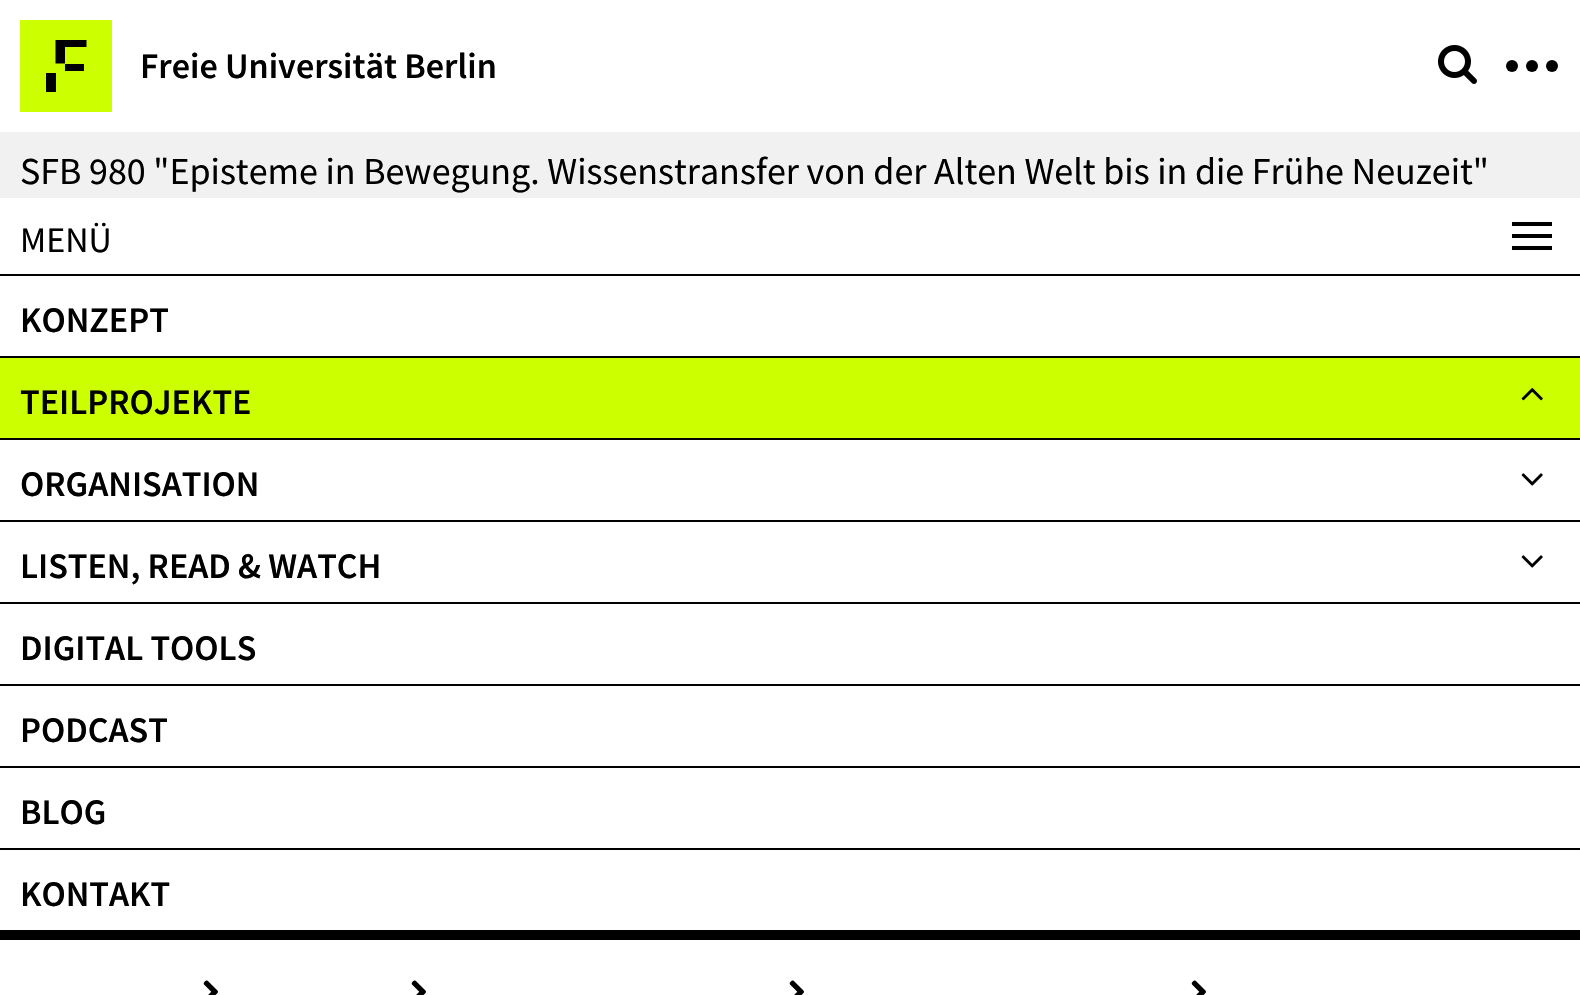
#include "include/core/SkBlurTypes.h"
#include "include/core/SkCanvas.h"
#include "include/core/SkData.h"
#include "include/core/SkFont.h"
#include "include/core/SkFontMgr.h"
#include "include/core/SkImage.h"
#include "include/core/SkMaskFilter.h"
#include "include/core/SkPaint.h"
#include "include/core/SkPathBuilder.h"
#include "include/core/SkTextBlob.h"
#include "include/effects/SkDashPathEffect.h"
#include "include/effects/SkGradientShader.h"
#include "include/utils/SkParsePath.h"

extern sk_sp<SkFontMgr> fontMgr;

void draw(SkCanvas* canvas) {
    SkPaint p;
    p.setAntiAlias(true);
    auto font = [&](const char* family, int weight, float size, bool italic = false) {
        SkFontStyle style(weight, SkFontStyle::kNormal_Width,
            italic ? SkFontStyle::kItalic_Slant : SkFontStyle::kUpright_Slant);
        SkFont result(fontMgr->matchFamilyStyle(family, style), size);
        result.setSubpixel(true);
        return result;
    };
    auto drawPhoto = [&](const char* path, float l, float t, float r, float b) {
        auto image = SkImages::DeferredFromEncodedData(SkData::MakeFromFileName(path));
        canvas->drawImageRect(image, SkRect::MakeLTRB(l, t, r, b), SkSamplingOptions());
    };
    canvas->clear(0xFFFFFFFF);
    p.setColor(0xFFCCFF00);
    canvas->drawRect(SkRect::MakeLTRB(20, 20, 112, 112), p);
    p.setColor(0xFF000000);
    canvas->drawPath(SkPathBuilder().moveTo(55.5f, 40).lineTo(86.5f, 40).lineTo(86.5f, 47).lineTo(65, 47).lineTo(65, 63.5f).lineTo(55.5f, 63.5f).close().detach(), p);
    canvas->drawRect(SkRect::MakeLTRB(65, 64, 84, 71), p);
    canvas->drawRect(SkRect::MakeLTRB(46, 73, 56, 92), p);
    auto font1 = font("Source Sans Pro", 600, 36);
    canvas->drawString("Freie Universität Berlin", 140, 78, font1, p);
    drawPhoto("media/1.png", 1438, 45, 1477, 84);
    canvas->drawCircle(1512, 66, 6, p);
    canvas->drawCircle(1532, 66, 6, p);
    canvas->drawCircle(1552, 66, 6, p);
    p.setColor(0xFFF1F1F1);
    canvas->drawRect(SkRect::MakeLTRB(0, 132, 1580, 198), p);
    auto font2 = font("Source Sans Pro", 400, 38);
    p.setColor(0xFF000000);
    canvas->drawString("SFB 980 \"Episteme in Bewegung. Wissenstransfer von der Alten Welt bis in die Frühe Neuzeit\"", 20, 184, font2, p);
    canvas->drawRect(SkRect::MakeLTRB(0, 930, 1580, 940), p);
    auto font3 = font("Source Sans Pro", 400, 36);
    canvas->drawString("MENÜ", 20, 252, font3, p);
    {
        const struct { float l, t, r, b; SkColor color; } items[] = {
            {1512, 222, 1552, 226, 0xFF000000},
            {1512, 234, 1552, 238, 0xFF000000},
            {1512, 246, 1552, 250, 0xFF000000},
            {0, 274, 1580, 276, 0xFF000000},
            {0, 356, 1580, 358, 0xFF000000},
        };
        for (auto [l, t, r, b, color] : items) {
            p.setColor(color);
            canvas->drawRect(SkRect::MakeLTRB(l, t, r, b), p);
        }
    }
    canvas->drawString("KONZEPT", 20, 332, font1, p);
    p.setColor(0xFFCCFF00);
    canvas->drawRect(SkRect::MakeLTRB(0, 358, 1580, 438), p);
    p.setColor(0xFF000000);
    canvas->drawRect(SkRect::MakeLTRB(0, 438, 1580, 440), p);
    canvas->drawString("TEILPROJEKTE", 20, 414, font1, p);
    drawPhoto("media/2.png", 1521, 388, 1543, 401);
    canvas->drawRect(SkRect::MakeLTRB(0, 520, 1580, 522), p);
    canvas->drawString("ORGANISATION", 20, 496, font1, p);
    drawPhoto("media/3.png", 1521, 473, 1543, 486);
    canvas->drawRect(SkRect::MakeLTRB(0, 602, 1580, 604), p);
    canvas->drawString("LISTEN, READ & WATCH", 20, 578, font1, p);
    drawPhoto("media/3.png", 1521, 555, 1543, 568);
    canvas->drawRect(SkRect::MakeLTRB(0, 684, 1580, 686), p);
    canvas->drawString("DIGITAL TOOLS", 20, 660, font1, p);
    canvas->drawRect(SkRect::MakeLTRB(0, 766, 1580, 768), p);
    canvas->drawString("PODCAST", 20, 742, font1, p);
    canvas->drawRect(SkRect::MakeLTRB(0, 848, 1580, 850), p);
    canvas->drawString("BLOG", 20, 824, font1, p);
    canvas->drawString("KONTAKT", 20, 906, font1, p);
    drawPhoto("media/4.png", 203, 980, 218, 995);
    drawPhoto("media/4.png", 411, 980, 426, 995);
    drawPhoto("media/4.png", 789, 980, 804, 995);
    drawPhoto("media/4.png", 1191, 980, 1206, 995);
}
